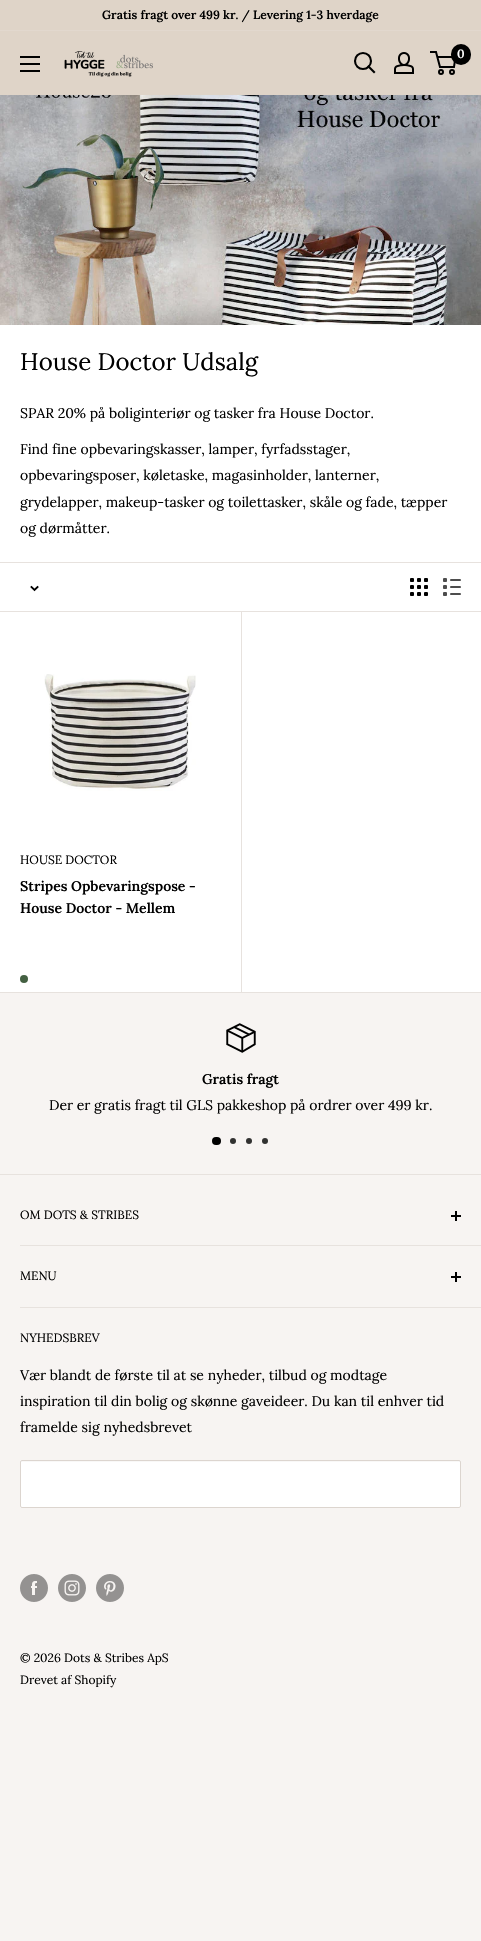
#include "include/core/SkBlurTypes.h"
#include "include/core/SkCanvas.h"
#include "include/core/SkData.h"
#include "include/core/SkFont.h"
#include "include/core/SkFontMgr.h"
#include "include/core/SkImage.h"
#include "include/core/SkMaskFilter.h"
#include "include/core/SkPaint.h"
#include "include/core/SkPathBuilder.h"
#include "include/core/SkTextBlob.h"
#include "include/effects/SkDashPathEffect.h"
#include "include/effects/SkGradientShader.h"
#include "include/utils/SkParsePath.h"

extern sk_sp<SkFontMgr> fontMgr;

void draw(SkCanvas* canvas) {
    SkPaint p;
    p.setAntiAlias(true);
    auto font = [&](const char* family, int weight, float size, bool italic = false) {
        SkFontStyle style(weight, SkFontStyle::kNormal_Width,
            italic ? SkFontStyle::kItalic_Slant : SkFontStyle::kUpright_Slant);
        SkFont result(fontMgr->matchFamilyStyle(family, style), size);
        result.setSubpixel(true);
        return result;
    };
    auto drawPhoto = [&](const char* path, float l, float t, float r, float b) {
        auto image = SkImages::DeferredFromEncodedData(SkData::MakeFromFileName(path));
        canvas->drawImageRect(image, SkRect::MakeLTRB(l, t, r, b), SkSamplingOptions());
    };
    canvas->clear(0xFFF7F4F2);
    p.setColor(0xFFDFD4C8);
    canvas->drawRect(SkRect::MakeLTRB(0, 0, 481, 30), p);
    p.setColor(0xFFE2D8CE);
    canvas->drawRect(SkRect::MakeLTRB(0, 30, 481, 31), p);
    auto font1 = font("Lora", 600, 12);
    p.setColor(0xFF000000);
    canvas->drawString("Gratis fragt over 499 kr. / Levering 1-3 hverdage", 102, 19, font1, p);
    p.setColor(0xFFDFD4C8);
    canvas->drawRect(SkRect::MakeLTRB(0, 31, 481, 95), p);
    drawPhoto("media/1.png", 20, 56, 40, 72);
    drawPhoto("media/2.png", 64, 51, 153, 77);
    p.setStyle(SkPaint::kStroke_Style);
    p.setStrokeWidth(2.1f);
    p.setStrokeCap(SkPaint::kSquare_Cap);
    p.setColor(0xFF000000);
    canvas->drawPath(SkPathBuilder().moveTo(374, 72).lineTo(368.5f, 66.5f).detach(), p);
    p.setStrokeCap(SkPaint::kButt_Cap);
    canvas->drawCircle(363, 61, 8, p);
    drawPhoto("media/3.png", 394, 52, 414, 74);
    p.setStrokeWidth(2);
    canvas->drawCircle(441, 72, 2, p);
    canvas->drawCircle(452, 72, 2, p);
    canvas->drawPath(SkPathBuilder().moveTo(437.5f, 57).lineTo(455.5f, 57).lineTo(454, 67).lineTo(440, 67).lineTo(436, 52).lineTo(430, 52).detach(), p);
    p.setStyle(SkPaint::kFill_Style);
    canvas->drawRoundRect(SkRect::MakeLTRB(451, 44, 471, 65), 10, 10, p);
    p.setColor(0xFFFFFFFF);
    canvas->drawString("0", 457, 58, font1, p);
    drawPhoto("media/4.png", 0, 95, 481, 325);
    canvas->drawRect(SkRect::MakeLTRB(0, 325, 481, 992), p);
    p.setColor(0xFFE7E2DE);
    canvas->drawRect(SkRect::MakeLTRB(0, 992, 481, 993), p);
    auto font2 = font("Lora", 400, 24);
    p.setColor(0xFF000000);
    canvas->drawString("House Doctor Udsalg", 20, 370, font2, p);
    auto font3 = font("Lora", 400, 14);
    {
        const struct { const char* s; float x, y; } items[] = {
            {"SPAR 20% på boliginteriør og tasker fra House Doctor.", 20, 418},
            {"Find fine opbevaringskasser, lamper, fyrfadsstager,", 20, 454},
            {"opbevaringsposer, køletaske, magasinholder, lanterner,", 20, 480},
            {"grydelapper, makeup-tasker og toilettasker, skåle og fade, tæpper", 20, 507},
            {"og dørmåtter.", 20, 533},
        };
        for (auto [s, x, y] : items) {
            canvas->drawString(s, x, y, font3, p);
        }
    }
    {
        const struct { float l, t, r, b; SkColor color; } items[] = {
            {0, 562, 481, 563, 0xFFE7E2DE},
            {241, 611, 242, 992, 0xFFE7E2DE},
            {0, 611, 481, 612, 0xFFE7E2DE},
        };
        for (auto [l, t, r, b, color] : items) {
            p.setColor(color);
            canvas->drawRect(SkRect::MakeLTRB(l, t, r, b), p);
        }
    }
    p.setStyle(SkPaint::kStroke_Style);
    p.setStrokeWidth(1.9f);
    p.setStrokeCap(SkPaint::kSquare_Cap);
    p.setColor(0xFF000000);
    canvas->drawPath(SkPathBuilder().moveTo(37.5f, 587).lineTo(34.5f, 590).lineTo(31.5f, 587).detach(), p);
    drawPhoto("media/5.png", 410, 578, 428, 596);
    drawPhoto("media/6.png", 443, 578, 461, 596);
    drawPhoto("media/7.png", 44, 674, 196, 791);
    auto font4 = font("Lora", 400, 12);
    p.setStyle(SkPaint::kFill_Style);
    canvas->drawString("HOUSE DOCTOR", 20, 864, font4, p);
    auto font5 = font("Lora", 600, 14);
    canvas->drawString("Stripes Opbevaringspose -", 20, 891, font5, p);
    canvas->drawString("House Doctor - Mellem", 20, 913, font5, p);
    p.setColor(0xFF446042);
    canvas->drawCircle(24, 979, 4, p);
    drawPhoto("media/8.png", 226, 1023, 256, 1053);
    p.setColor(0xFF000000);
    canvas->drawString("Gratis fragt", 202, 1084, font5, p);
    canvas->drawString("Der er gratis fragt til GLS pakkeshop på ordrer over 499 kr.", 49, 1110, font3, p);
    canvas->drawRoundRect(SkRect::MakeLTRB(212, 1137, 221, 1145), 4, 4, p);
    p.setColor(0xFF313130);
    canvas->drawCircle(233, 1141, 3, p);
    canvas->drawCircle(249, 1141, 3, p);
    canvas->drawCircle(265, 1141, 3, p);
    p.setColor(0xFFE7E2DE);
    canvas->drawRect(SkRect::MakeLTRB(0, 1174, 481, 1175), p);
    canvas->drawRect(SkRect::MakeLTRB(20, 1245, 481, 1246), p);
    p.setColor(0xFF000000);
    canvas->drawString("OM DOTS & STRIBES", 20, 1219, font4, p);
    {
        const struct { float l, t, r, b; SkColor color; } items[] = {
            {455, 1211, 457, 1221, 0xFF000000},
            {451, 1215, 461, 1217, 0xFF000000},
            {20, 1307, 481, 1308, 0xFFE7E2DE},
        };
        for (auto [l, t, r, b, color] : items) {
            p.setColor(color);
            canvas->drawRect(SkRect::MakeLTRB(l, t, r, b), p);
        }
    }
    p.setColor(0xFF000000);
    canvas->drawString("MENU", 20, 1280, font4, p);
    canvas->drawRect(SkRect::MakeLTRB(455, 1272, 457, 1282), p);
    canvas->drawRect(SkRect::MakeLTRB(451, 1276, 461, 1278), p);
    canvas->drawString("NYHEDSBREV", 20, 1342, font4, p);
    {
        const struct { const char* s; float x, y; } items[] = {
            {"Vær blandt de første til at se nyheder, tilbud og modtage", 20, 1380},
            {"inspiration til din bolig og skønne gaveideer. Du kan til enhver tid", 20, 1406},
            {"framelde sig nyhedsbrevet", 20, 1432},
        };
        for (auto [s, x, y] : items) {
            canvas->drawString(s, x, y, font3, p);
        }
    }
    p.setColor(0xFFFFFFFF);
    canvas->drawRoundRect(SkRect::MakeLTRB(20, 1460, 461, 1508), 2, 2, p);
    p.setColor(0xFFF9F8F7);
    canvas->drawPath(SkPathBuilder().moveTo(22, 1462).lineTo(459, 1462).lineTo(460, 1462).lineTo(460, 1463).cubicTo(460, 1462, 460, 1461, 459, 1461).lineTo(22, 1461).lineTo(21, 1462).lineTo(21, 1463).cubicTo(21, 1462, 21, 1462, 22, 1462).close().detach(), p);
    p.setStyle(SkPaint::kStroke_Style);
    p.setStrokeWidth(1);
    p.setStrokeCap(SkPaint::kButt_Cap);
    p.setColor(0xFFDCD5CF);
    canvas->drawRoundRect(SkRect::MakeLTRB(20.5f, 1460.5f, 460.5f, 1507.5f), 1.5f, 1.5f, p);
    drawPhoto("media/9.png", 20, 1574, 48, 1602);
    drawPhoto("media/10.png", 58, 1574, 86, 1602);
    drawPhoto("media/11.png", 96, 1574, 124, 1602);
    p.setStyle(SkPaint::kFill_Style);
    p.setColor(0xFF000000);
    canvas->drawString("© 2026 Dots & Stribes ApS", 20, 1662, font4, p);
    canvas->drawString("Drevet af Shopify", 20, 1684, font4, p);
}
